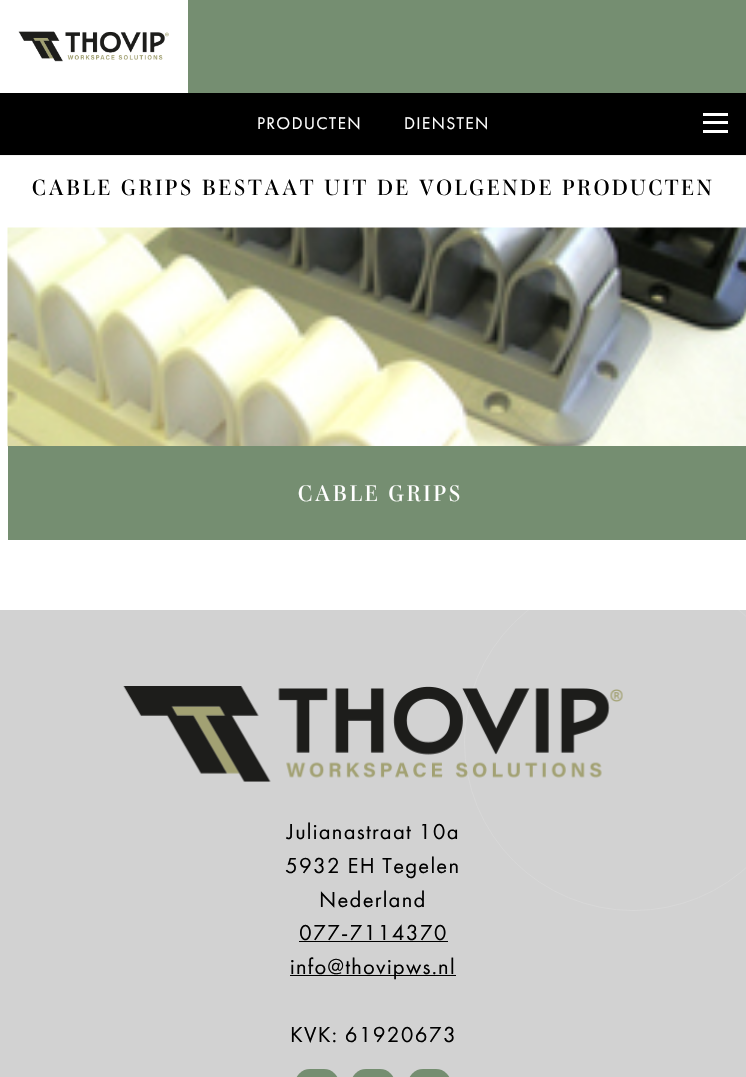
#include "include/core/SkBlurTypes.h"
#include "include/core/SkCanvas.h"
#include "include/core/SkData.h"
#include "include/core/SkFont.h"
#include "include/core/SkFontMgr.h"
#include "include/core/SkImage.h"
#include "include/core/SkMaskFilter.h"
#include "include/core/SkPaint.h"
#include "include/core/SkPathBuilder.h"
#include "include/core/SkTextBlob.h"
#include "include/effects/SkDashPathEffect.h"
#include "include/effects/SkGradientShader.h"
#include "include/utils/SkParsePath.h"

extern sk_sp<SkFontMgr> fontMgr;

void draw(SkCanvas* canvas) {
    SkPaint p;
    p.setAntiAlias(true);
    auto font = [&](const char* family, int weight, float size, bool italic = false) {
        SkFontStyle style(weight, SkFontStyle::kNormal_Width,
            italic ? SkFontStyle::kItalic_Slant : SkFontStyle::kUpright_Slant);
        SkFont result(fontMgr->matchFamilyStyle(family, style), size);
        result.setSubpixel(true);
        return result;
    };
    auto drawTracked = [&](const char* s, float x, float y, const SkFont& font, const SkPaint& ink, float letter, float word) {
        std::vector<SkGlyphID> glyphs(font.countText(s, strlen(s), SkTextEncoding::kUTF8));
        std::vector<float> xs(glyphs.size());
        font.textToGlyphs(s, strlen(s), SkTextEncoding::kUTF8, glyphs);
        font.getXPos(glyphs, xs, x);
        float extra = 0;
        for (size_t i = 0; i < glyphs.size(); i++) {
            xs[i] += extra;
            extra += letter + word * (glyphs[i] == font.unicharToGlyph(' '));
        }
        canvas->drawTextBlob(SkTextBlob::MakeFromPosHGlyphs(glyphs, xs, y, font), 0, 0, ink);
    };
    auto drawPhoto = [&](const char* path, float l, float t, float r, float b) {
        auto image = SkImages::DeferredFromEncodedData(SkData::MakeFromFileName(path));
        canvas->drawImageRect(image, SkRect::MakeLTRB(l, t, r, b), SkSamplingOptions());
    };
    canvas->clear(0xFFFFFFFF);
    p.setColor(0x4D000000);
    p.setMaskFilter(SkMaskFilter::MakeBlur(kNormal_SkBlurStyle, 0.5f));
    canvas->drawRect(SkRect::MakeLTRB(0, 0, 746, 155), p);
    p.setMaskFilter(nullptr);
    p.setColor(0xFF758E71);
    canvas->drawRect(SkRect::MakeLTRB(188, 0, 746, 93), p);
    p.setColor(0xFFFFFFFF);
    canvas->drawRect(SkRect::MakeLTRB(0, 0, 188, 93), p);
    drawPhoto("media/1.png", 18, 31, 169, 62);
    p.setColor(0xFF000000);
    canvas->drawRect(SkRect::MakeLTRB(0, 93, 746, 155), p);
    auto font1 = font("Futura PT", 400, 17.5f);
    p.setColor(0xFFFFFFFF);
    drawTracked("PRODUCTEN", 257, 129, font1, p, 1.25f, 0);
    drawTracked("DIENSTEN", 404, 129, font1, p, 1.25f, 0);
    {
        const struct { float l, t, r, b; SkColor color; } items[] = {
            {703, 113, 728, 116, 0xFFFFFFFF},
            {703, 121, 728, 124, 0xFFFFFFFF},
            {703, 130, 728, 133, 0xFFFFFFFF},
        };
        for (auto [l, t, r, b, color] : items) {
            p.setColor(color);
            canvas->drawRect(SkRect::MakeLTRB(l, t, r, b), p);
        }
    }
    auto font2 = font("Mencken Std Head", 400, 22.5f);
    p.setColor(0xFF000000);
    drawTracked("CABLE GRIPS BESTAAT UIT DE VOLGENDE PRODUCTEN", 32, 195, font2, p, 2.5f, 0);
    drawPhoto("media/2.png", 7, 227, 746, 447);
    p.setColor(0xFF758E71);
    canvas->drawRect(SkRect::MakeLTRB(8, 446, 746, 540), p);
    auto font3 = font("Mencken Std Head", 400, 23);
    p.setColor(0xFFFFFFFF);
    drawTracked("CABLE GRIPS", 298, 501, font3, p, 2.5f, 0);
    p.setColor(0xFFD2D2D2);
    canvas->drawRect(SkRect::MakeLTRB(0, 610, 746, 1077), p);
    canvas->save();
    canvas->clipRect(SkRect::MakeLTRB(0, 610, 746, 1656));
    p.setStyle(SkPaint::kStroke_Style);
    p.setStrokeWidth(1);
    p.setColor(0xFFD8D8D8);
    canvas->drawRoundRect(SkRect::MakeLTRB(464.5f, 573.5f, 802.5f, 910.5f), 168.5f, 168.5f, p);
    canvas->restore();
    drawPhoto("media/3.png", 123, 686, 623, 782);
    auto font4 = font("Futura PT", 400, 22.5f);
    p.setStyle(SkPaint::kFill_Style);
    p.setColor(0xFF000000);
    {
        const struct { const char* s; float x, y; } items[] = {
            {"Julianastraat 10a", 287, 839},
            {"5932 EH Tegelen", 285, 873},
            {"Nederland", 319, 907},
            {"077-7114370", 299, 940},
        };
        for (auto [s, x, y] : items) {
            drawTracked(s, x, y, font4, p, 1.25f, 0);
        }
    }
    canvas->drawRect(SkRect::MakeLTRB(299, 941, 448, 942), p);
    canvas->drawRect(SkRect::MakeLTRB(290, 975, 456, 976), p);
    drawTracked("info@thovipws.nl", 290, 974, font4, p, 1.25f, 0);
    drawTracked("KVK: 61920673", 290, 1042, font4, p, 1.25f, 0);
    p.setColor(0xFF758E71);
    canvas->drawRoundRect(SkRect::MakeLTRB(295, 1069, 339, 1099), 22, 22, p);
    canvas->drawRoundRect(SkRect::MakeLTRB(351, 1069, 395, 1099), 22, 22, p);
    canvas->drawRoundRect(SkRect::MakeLTRB(408, 1069, 451, 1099), 21.5f, 21.5f, p);
}
